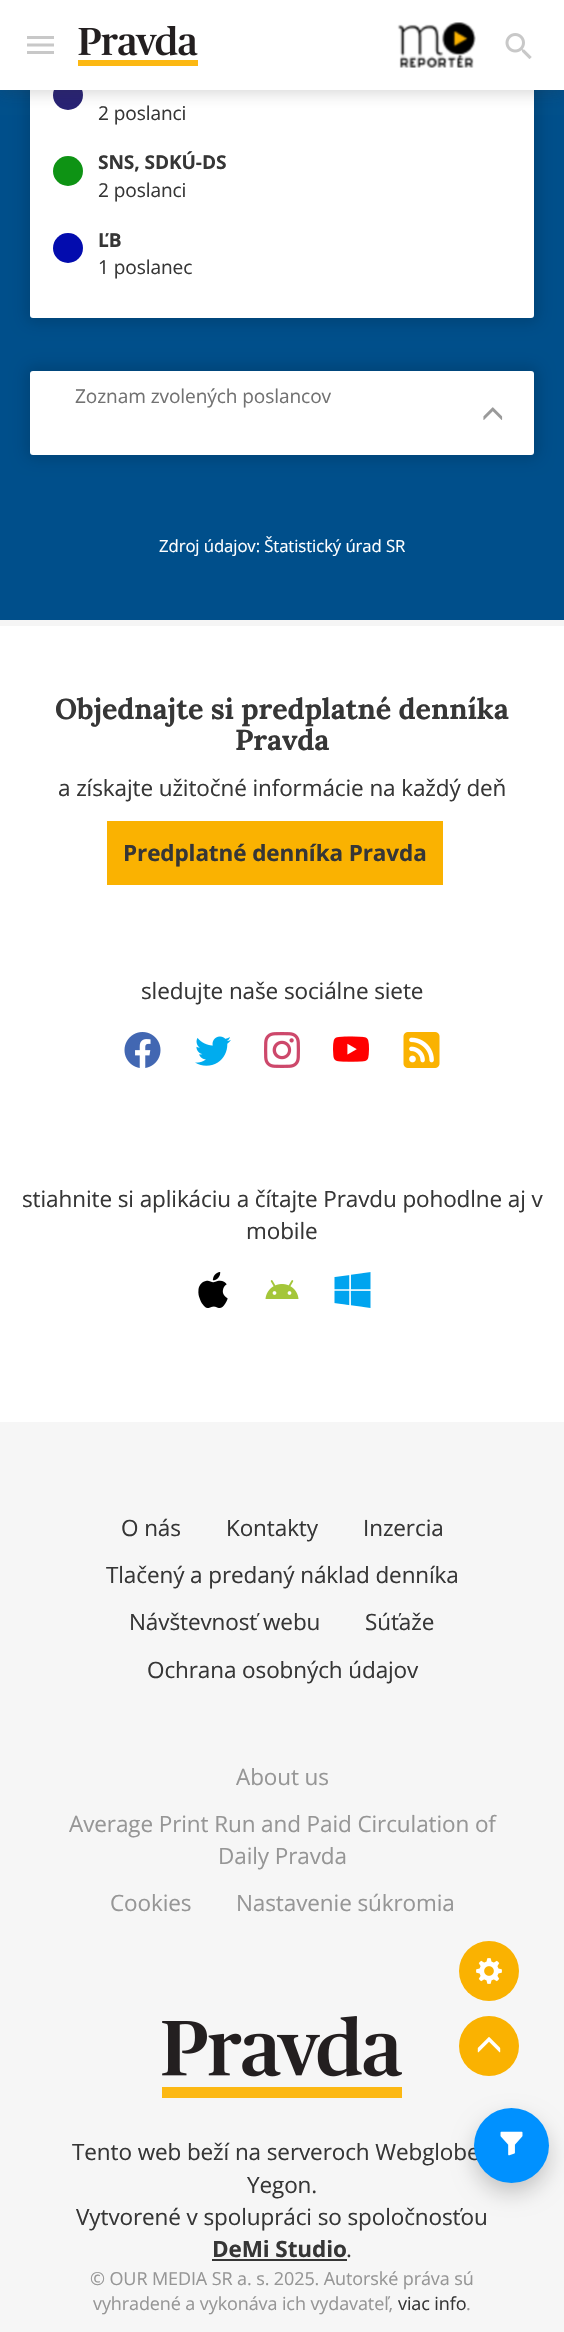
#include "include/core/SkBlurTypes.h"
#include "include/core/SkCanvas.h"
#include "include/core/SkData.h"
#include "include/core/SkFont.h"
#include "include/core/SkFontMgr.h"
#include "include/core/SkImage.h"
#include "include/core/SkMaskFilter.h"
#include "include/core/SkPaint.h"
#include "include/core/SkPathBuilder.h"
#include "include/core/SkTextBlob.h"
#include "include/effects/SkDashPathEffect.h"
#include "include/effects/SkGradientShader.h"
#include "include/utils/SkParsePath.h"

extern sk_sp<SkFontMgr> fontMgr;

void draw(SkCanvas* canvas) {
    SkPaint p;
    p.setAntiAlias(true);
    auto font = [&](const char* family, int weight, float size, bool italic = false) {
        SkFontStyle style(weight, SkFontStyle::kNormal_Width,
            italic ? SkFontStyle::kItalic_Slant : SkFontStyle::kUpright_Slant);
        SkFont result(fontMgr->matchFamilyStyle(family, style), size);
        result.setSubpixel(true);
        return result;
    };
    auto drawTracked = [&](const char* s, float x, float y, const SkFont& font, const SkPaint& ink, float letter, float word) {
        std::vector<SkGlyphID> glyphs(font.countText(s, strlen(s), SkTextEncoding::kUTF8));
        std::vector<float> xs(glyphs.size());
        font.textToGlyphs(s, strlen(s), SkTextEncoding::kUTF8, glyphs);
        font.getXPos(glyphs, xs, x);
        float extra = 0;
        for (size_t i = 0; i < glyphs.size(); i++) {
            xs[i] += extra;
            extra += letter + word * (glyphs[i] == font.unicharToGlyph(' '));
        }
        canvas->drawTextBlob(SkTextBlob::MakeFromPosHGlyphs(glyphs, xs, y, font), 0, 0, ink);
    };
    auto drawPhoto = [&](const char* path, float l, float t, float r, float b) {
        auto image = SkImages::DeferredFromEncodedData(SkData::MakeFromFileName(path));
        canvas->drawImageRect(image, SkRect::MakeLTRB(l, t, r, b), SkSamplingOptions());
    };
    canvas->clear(0xFF004F8B);
    p.setColor(0x26000000);
    p.setMaskFilter(SkMaskFilter::MakeBlur(kNormal_SkBlurStyle, 7.5f));
    canvas->drawRoundRect(SkRect::MakeLTRB(26, -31, 539, 323), 8, 8, p);
    p.setMaskFilter(nullptr);
    p.setColor(0xFFFFFFFF);
    canvas->drawRoundRect(SkRect::MakeLTRB(30, -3, 534, 318), 3, 3, p);
    p.setColor(0xFF272173);
    canvas->drawCircle(68, 95, 15, p);
    p.setColor(0x33363636);
    p.setMaskFilter(SkMaskFilter::MakeBlur(kNormal_SkBlurStyle, 7.5f));
    canvas->drawRect(SkRect::MakeLTRB(0, 3, 564, 93), p);
    p.setMaskFilter(nullptr);
    p.setColor(0xFFFFFFFF);
    canvas->drawRect(SkRect::MakeLTRB(0, 0, 564, 90), p);
    drawPhoto("media/1.png", 27, 36, 54, 54);
    drawPhoto("media/2.png", 78, 26, 198, 66);
    drawPhoto("media/3.png", 397, 22, 476, 68);
    drawPhoto("media/4.png", 505, 33, 532, 59);
    auto font1 = font("Open Sans", 400, 19.1f);
    p.setColor(0xFF363636);
    drawTracked("2 poslanci", 98, 120, font1, p, -0.1f, 0);
    p.setColor(0xFF0E9314);
    canvas->drawCircle(68, 171, 15, p);
    auto font2 = font("Open Sans", 700, 19.1f);
    p.setColor(0xFF363636);
    drawTracked("SNS, SDKÚ-DS", 98, 169, font2, p, -0.1f, 0);
    drawTracked("2 poslanci", 98, 197, font1, p, -0.1f, 0);
    p.setColor(0xFF030CAE);
    canvas->drawCircle(68, 248, 15, p);
    p.setColor(0xFF363636);
    drawTracked("ĽB", 98, 247, font2, p, -0.1f, 0);
    drawTracked("1 poslanec", 98, 274, font1, p, -0.1f, 0);
    p.setColor(0x26000000);
    p.setMaskFilter(SkMaskFilter::MakeBlur(kNormal_SkBlurStyle, 7.5f));
    canvas->drawRoundRect(SkRect::MakeLTRB(26, 366, 539, 459), 8, 8, p);
    p.setMaskFilter(nullptr);
    p.setColor(0xFFFFFFFF);
    canvas->drawRoundRect(SkRect::MakeLTRB(30, 371, 534, 455), 3, 3, p);
    p.setColor(0xFF727272);
    drawTracked("Zoznam zvolených poslancov", 75, 403, font1, p, -0.1f, 0);
    drawPhoto("media/5.png", 483, 407, 503, 420);
    auto font3 = font("Open Sans", 400, 16.75f);
    p.setColor(0xFFFFFFFF);
    drawTracked("Zdroj údajov: Štatistický úrad SR", 159, 552, font3, p, -0.1f, 0);
    p.setColor(0xFFF6F6F6);
    canvas->drawRect(SkRect::MakeLTRB(0, 1422, 564, 2332), p);
    p.setColor(0x33000000);
    p.setMaskFilter(SkMaskFilter::MakeBlur(kNormal_SkBlurStyle, 10.5f));
    canvas->drawRoundRect(SkRect::MakeLTRB(474, 2118, 549, 2193), 37.5f, 37.5f, p);
    p.setMaskFilter(nullptr);
    auto font4 = font("Open Sans", 400, 22.5f);
    p.setColor(0xFF363636);
    drawTracked("Tento web beží na serveroch Webglobe", 72, 2160, font4, p, -0.1f, 0);
    p.setColor(0xFF0091FF);
    canvas->drawCircle(511.5f, 2145.5f, 37.5f, p);
    drawPhoto("media/6.png", 500, 2131, 523, 2156);
    p.setColor(0xFFFFFFFF);
    canvas->drawRect(SkRect::MakeLTRB(0, 626, 564, 1422), p);
    p.setColor(0xFFF5F5F5);
    canvas->drawRect(SkRect::MakeLTRB(0, 620, 564, 626), p);
    auto font5 = font("Lora", 700, 28.75f);
    p.setColor(0xFF363636);
    drawTracked("Objednajte si predplatné denníka", 55, 719, font5, p, -0.1f, 0);
    drawTracked("Pravda", 235, 750, font5, p, -0.1f, 0);
    drawTracked("a získajte užitočné informácie na každý deň", 58, 796, font4, p, -0.1f, 0);
    p.setColor(0xFFFAB201);
    canvas->drawRect(SkRect::MakeLTRB(108, 822, 442, 884), p);
    p.setStyle(SkPaint::kStroke_Style);
    p.setStrokeWidth(2);
    canvas->drawRect(SkRect::MakeLTRB(108, 822, 442, 884), p);
    auto font6 = font("Open Sans", 700, 22.5f);
    p.setStyle(SkPaint::kFill_Style);
    p.setColor(0xFF363636);
    drawTracked("Predplatné denníka Pravda", 123, 861, font6, p, -0.1f, 0);
    drawTracked("sledujte naše sociálne siete", 141, 999, font4, p, -0.1f, 0);
    drawPhoto("media/7.png", 124, 1032, 161, 1068);
    drawPhoto("media/8.png", 195, 1036, 231, 1066);
    drawPhoto("media/9.png", 264, 1032, 300, 1068);
    drawPhoto("media/10.png", 333, 1036, 369, 1062);
    drawPhoto("media/11.png", 403, 1032, 440, 1068);
    drawTracked("stiahnite si aplikáciu a čítajte Pravdu pohodlne aj v", 22, 1207, font4, p, -0.1f, 0);
    drawTracked("mobile", 246, 1239, font4, p, -0.1f, 0);
    drawPhoto("media/12.png", 198, 1272, 228, 1308);
    drawPhoto("media/13.png", 265, 1280, 299, 1299);
    drawPhoto("media/14.png", 334, 1272, 371, 1308);
    {
        const struct { const char* s; float x, y; } items[] = {
            {"O nás", 121, 1536},
            {"Kontakty", 226, 1536},
            {"Inzercia", 363, 1536},
            {"Tlačený a predaný náklad denníka", 106, 1583},
            {"Návštevnosť webu", 129, 1630},
            {"Súťaže", 365, 1630},
            {"Ochrana osobných údajov", 147, 1678},
        };
        for (auto [s, x, y] : items) {
            drawTracked(s, x, y, font4, p, -0.1f, 0);
        }
    }
    p.setColor(0xFF969696);
    {
        const struct { const char* s; float x, y; } items[] = {
            {"About us", 236, 1785},
            {"Average Print Run and Paid Circulation of", 69, 1832},
            {"Daily Pravda", 218, 1864},
            {"Cookies", 110, 1911},
            {"Nastavenie súkromia", 236, 1911},
        };
        for (auto [s, x, y] : items) {
            drawTracked(s, x, y, font4, p, -0.1f, 0);
        }
    }
    drawPhoto("media/15.png", 162, 2016, 402, 2098);
    p.setColor(0xFFFAB201);
    canvas->drawCircle(489, 1971, 30, p);
    drawPhoto("media/16.png", 476, 1958, 502, 1984);
    canvas->drawCircle(489, 2046, 30, p);
    drawPhoto("media/17.png", 477, 2037, 501, 2053);
    p.setColor(0xFF363636);
    drawTracked("Yegon.", 247, 2193, font4, p, -0.1f, 0);
    drawTracked("Vytvorené v spolupráci so spoločnosťou", 76, 2225, font4, p, -0.1f, 0);
    drawTracked("DeMi Studio", 212, 2257, font6, p, -0.1f, 0);
    canvas->drawRect(SkRect::MakeLTRB(212, 2259, 347, 2261), p);
    drawTracked(".", 346, 2257, font4, p, -0.1f, 0);
    auto font7 = font("Open Sans", 400, 18);
    p.setColor(0xFF969696);
    drawTracked("© OUR MEDIA SR a. s. 2025. Autorské práva sú", 90, 2285, font7, p, -0.1f, 0);
    drawTracked("vyhradené a vykonáva ich vydavateľ,", 93, 2310, font7, p, -0.1f, 0);
    p.setColor(0xFF363636);
    drawTracked("viac info", 398, 2310, font7, p, -0.1f, 0);
    p.setColor(0xFF969696);
    drawTracked(".", 466, 2310, font7, p, -0.1f, 0);
}
